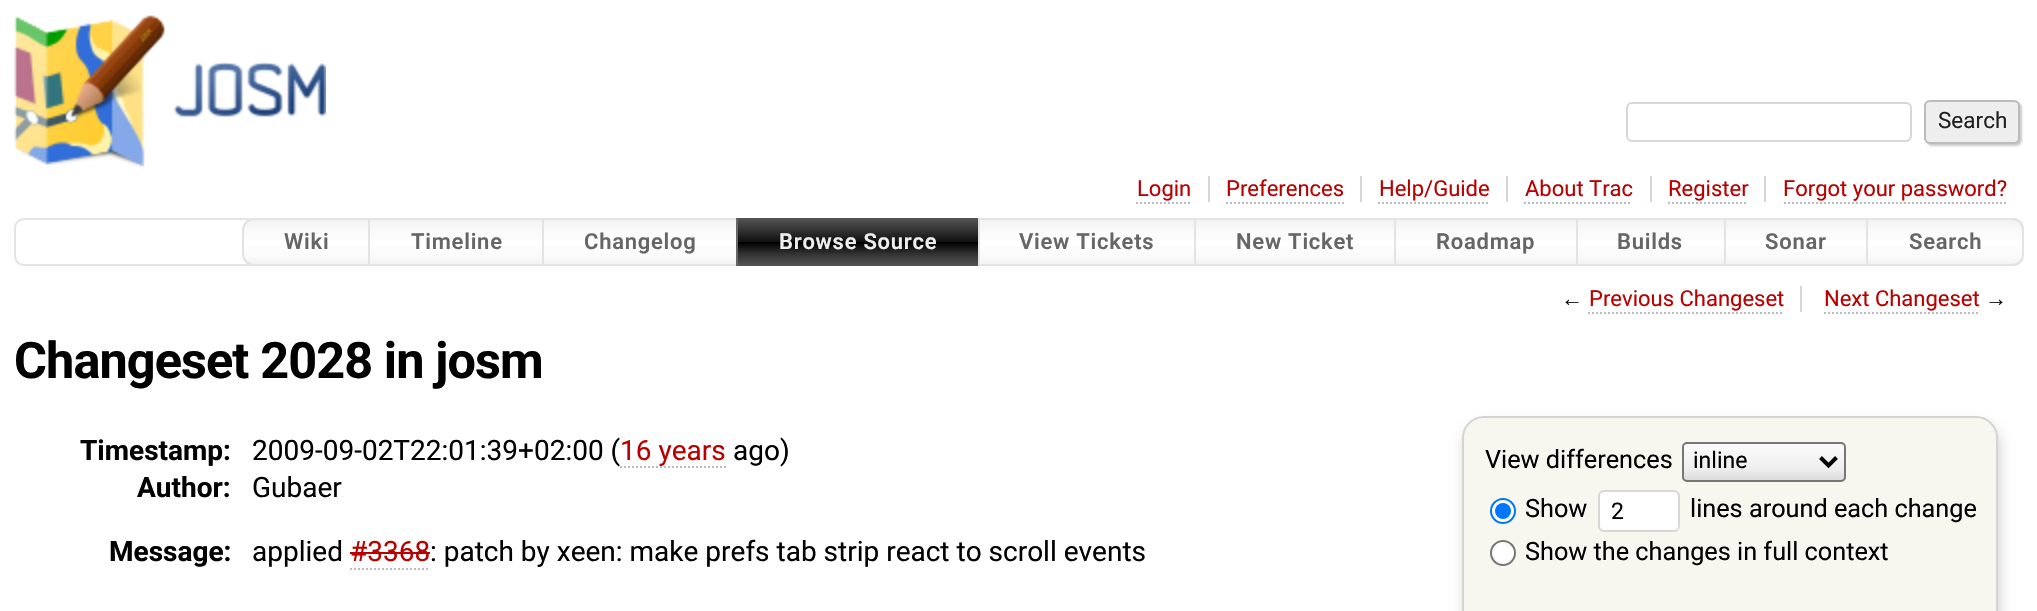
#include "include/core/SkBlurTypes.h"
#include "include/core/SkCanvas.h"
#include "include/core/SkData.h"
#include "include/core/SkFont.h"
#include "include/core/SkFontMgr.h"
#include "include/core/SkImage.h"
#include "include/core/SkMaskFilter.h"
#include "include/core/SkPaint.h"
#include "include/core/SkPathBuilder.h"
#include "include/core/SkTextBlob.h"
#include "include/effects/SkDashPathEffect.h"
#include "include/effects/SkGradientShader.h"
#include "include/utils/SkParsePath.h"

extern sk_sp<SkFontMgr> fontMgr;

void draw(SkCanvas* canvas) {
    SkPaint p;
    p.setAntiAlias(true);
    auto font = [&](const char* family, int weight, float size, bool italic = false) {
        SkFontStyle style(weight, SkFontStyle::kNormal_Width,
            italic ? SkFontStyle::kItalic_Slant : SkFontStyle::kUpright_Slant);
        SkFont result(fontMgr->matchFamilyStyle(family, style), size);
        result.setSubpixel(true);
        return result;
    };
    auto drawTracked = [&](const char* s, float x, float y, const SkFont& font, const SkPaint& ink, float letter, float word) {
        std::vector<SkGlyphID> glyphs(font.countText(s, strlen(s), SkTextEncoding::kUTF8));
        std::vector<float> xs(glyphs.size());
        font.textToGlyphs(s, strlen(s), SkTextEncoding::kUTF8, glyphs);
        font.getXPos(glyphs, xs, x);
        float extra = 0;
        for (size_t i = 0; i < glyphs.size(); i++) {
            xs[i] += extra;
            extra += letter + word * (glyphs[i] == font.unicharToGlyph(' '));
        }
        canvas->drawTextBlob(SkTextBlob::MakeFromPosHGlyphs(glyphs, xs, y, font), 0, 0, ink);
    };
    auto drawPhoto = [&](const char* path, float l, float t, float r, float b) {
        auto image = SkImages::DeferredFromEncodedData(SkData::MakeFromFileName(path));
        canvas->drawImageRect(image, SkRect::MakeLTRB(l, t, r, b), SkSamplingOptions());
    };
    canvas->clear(0xFFFFFFFF);
    drawPhoto("media/1.png", 14, 15, 326, 167);
    p.setStyle(SkPaint::kStroke_Style);
    p.setStrokeWidth(2);
    p.setColor(0xFFD7D7D7);
    canvas->drawRoundRect(SkRect::MakeLTRB(1627, 103, 1911, 141), 5, 5, p);
    p.setStyle(SkPaint::kFill_Style);
    p.setColor(0xFFCCCCCC);
    p.setMaskFilter(SkMaskFilter::MakeBlur(kNormal_SkBlurStyle, 1));
    canvas->drawRoundRect(SkRect::MakeLTRB(1926, 102, 2022, 146), 6, 6, p);
    p.setMaskFilter(nullptr);
    p.setColor(0xFFEEEEEE);
    canvas->drawRoundRect(SkRect::MakeLTRB(1925, 101, 2019, 143), 5, 5, p);
    p.setStyle(SkPaint::kStroke_Style);
    p.setColor(0xFFBBBBBB);
    canvas->drawRoundRect(SkRect::MakeLTRB(1925, 101, 2019, 143), 5, 5, p);
    auto font1 = font("Roboto", 400, 22.5f);
    p.setStyle(SkPaint::kFill_Style);
    p.setColor(0xFF222222);
    canvas->drawString("Search", 1938, 128, font1, p);
    p.setColor(0xFFD7D7D7);
    canvas->drawRect(SkRect::MakeLTRB(1208, 176, 1210, 202), p);
    auto font2 = font("Roboto", 400, 22);
    p.setColor(0xFFBB0000);
    canvas->drawString("Login", 1137, 196, font2, p);
    p.setStyle(SkPaint::kStroke_Style);
    p.setColor(0xFFBBBBBB);
    p.setPathEffect(SkDashPathEffect::Make({{2, 2}}, 0));
    canvas->drawPath(SkPathBuilder().moveTo(1136, 203).lineTo(1190, 203).detach(), p);
    p.setPathEffect(nullptr);
    p.setStyle(SkPaint::kFill_Style);
    p.setColor(0xFFD7D7D7);
    canvas->drawRect(SkRect::MakeLTRB(1360, 176, 1362, 202), p);
    p.setColor(0xFFBB0000);
    canvas->drawString("Preferences", 1226, 196, font2, p);
    p.setStyle(SkPaint::kStroke_Style);
    p.setColor(0xFFBBBBBB);
    p.setPathEffect(SkDashPathEffect::Make({{2, 2}}, 0));
    canvas->drawPath(SkPathBuilder().moveTo(1226, 203).lineTo(1344, 203).detach(), p);
    p.setPathEffect(nullptr);
    p.setStyle(SkPaint::kFill_Style);
    p.setColor(0xFFD7D7D7);
    canvas->drawRect(SkRect::MakeLTRB(1506, 176, 1508, 202), p);
    p.setColor(0xFFBB0000);
    canvas->drawString("Help/Guide", 1379, 196, font2, p);
    p.setStyle(SkPaint::kStroke_Style);
    p.setColor(0xFFBBBBBB);
    p.setPathEffect(SkDashPathEffect::Make({{2, 2}}, 0));
    canvas->drawPath(SkPathBuilder().moveTo(1378, 203).lineTo(1490, 203).detach(), p);
    p.setPathEffect(nullptr);
    p.setStyle(SkPaint::kFill_Style);
    p.setColor(0xFFD7D7D7);
    canvas->drawRect(SkRect::MakeLTRB(1650, 176, 1652, 202), p);
    p.setColor(0xFFBB0000);
    canvas->drawString("About Trac", 1525, 196, font2, p);
    p.setStyle(SkPaint::kStroke_Style);
    p.setColor(0xFFBBBBBB);
    p.setPathEffect(SkDashPathEffect::Make({{2, 2}}, 0));
    canvas->drawPath(SkPathBuilder().moveTo(1524, 203).lineTo(1632, 203).detach(), p);
    p.setPathEffect(nullptr);
    p.setStyle(SkPaint::kFill_Style);
    p.setColor(0xFFD7D7D7);
    canvas->drawRect(SkRect::MakeLTRB(1764, 176, 1766, 202), p);
    p.setColor(0xFFBB0000);
    canvas->drawString("Register", 1668, 196, font2, p);
    p.setStyle(SkPaint::kStroke_Style);
    p.setColor(0xFFBBBBBB);
    p.setPathEffect(SkDashPathEffect::Make({{2, 2}}, 0));
    canvas->drawPath(SkPathBuilder().moveTo(1668, 203).lineTo(1748, 203).detach(), p);
    p.setPathEffect(nullptr);
    p.setStyle(SkPaint::kFill_Style);
    p.setColor(0xFFBB0000);
    canvas->drawString("Forgot your password?", 1783, 196, font2, p);
    p.setStyle(SkPaint::kStroke_Style);
    p.setColor(0xFFBBBBBB);
    p.setPathEffect(SkDashPathEffect::Make({{2, 2}}, 0));
    canvas->drawPath(SkPathBuilder().moveTo(1784, 203).lineTo(2008, 203).detach(), p);
    p.setPathEffect(nullptr);
    p.setColor(0xFFE4E4E4);
    canvas->drawRoundRect(SkRect::MakeLTRB(15, 219, 2023, 265), 9, 9, p);
    canvas->save();
    canvas->clipPath(SkPathBuilder().moveTo(254, 218).lineTo(370, 218).lineTo(370, 266).lineTo(254, 266).cubicTo(247.5f, 266, 242, 260.5f, 242, 254).lineTo(242, 230).cubicTo(242, 223.5f, 247.5f, 218, 254, 218).close().detach(), true);
    p.setStyle(SkPaint::kFill_Style);
    {
        const SkColor colors[] = {0xFFF2F2F2, 0xFFFAFAFA, 0xFFFEFEFE, 0xFFFFFFFF, 0xFFFAFAFA, 0xFFF2F2F2};
        const float stops[] = {0, 0.25f, 0.49f, 0.51f, 0.85f, 1};
        const SkPoint ends[] = {{306, 220}, {306, 264}};
        p.setShader(SkGradientShader::MakeLinear(ends, colors, stops, 6, SkTileMode::kClamp));
        p.setAlpha(255);
    }
    canvas->drawRect(SkRect::MakeLTRB(242, 220, 368, 264), p);
    canvas->restore();
    p.setStyle(SkPaint::kStroke_Style);
    p.setShader(nullptr);
    p.setColor(0xFFE4E4E4);
    canvas->drawPath(SkPathBuilder().moveTo(254, 219).lineTo(369, 219).lineTo(369, 265).lineTo(254, 265).cubicTo(248, 265, 243, 260, 243, 254).lineTo(243, 230).cubicTo(243, 224, 248, 219, 254, 219).close().detach(), p);
    auto font3 = font("Roboto", 600, 22);
    p.setStyle(SkPaint::kFill_Style);
    p.setColor(0xFF666666);
    drawTracked("Wiki", 284, 249, font3, p, 0.75f, 0);
    {
        const SkColor colors[] = {0xFFF2F2F2, 0xFFFAFAFA, 0xFFFEFEFE, 0xFFFFFFFF, 0xFFFAFAFA, 0xFFF2F2F2};
        const float stops[] = {0, 0.25f, 0.49f, 0.51f, 0.85f, 1};
        const SkPoint ends[] = {{456, 220}, {456, 264}};
        p.setShader(SkGradientShader::MakeLinear(ends, colors, stops, 6, SkTileMode::kClamp));
        p.setAlpha(255);
    }
    canvas->drawRect(SkRect::MakeLTRB(370, 220, 542, 264), p);
    p.setStyle(SkPaint::kStroke_Style);
    p.setShader(nullptr);
    p.setColor(0xFFE4E4E4);
    canvas->drawRect(SkRect::MakeLTRB(369, 219, 543, 265), p);
    p.setStyle(SkPaint::kFill_Style);
    p.setColor(0xFF666666);
    drawTracked("Timeline", 411, 249, font3, p, 0.75f, 0);
    {
        const SkColor colors[] = {0xFFF2F2F2, 0xFFFAFAFA, 0xFFFEFEFE, 0xFFFFFFFF, 0xFFFAFAFA, 0xFFF2F2F2};
        const float stops[] = {0, 0.25f, 0.49f, 0.51f, 0.85f, 1};
        const SkPoint ends[] = {{641, 220}, {641, 264}};
        p.setShader(SkGradientShader::MakeLinear(ends, colors, stops, 6, SkTileMode::kClamp));
        p.setAlpha(255);
    }
    canvas->drawRect(SkRect::MakeLTRB(544, 220, 736, 264), p);
    p.setStyle(SkPaint::kStroke_Style);
    p.setShader(nullptr);
    p.setColor(0xFFE4E4E4);
    canvas->drawRect(SkRect::MakeLTRB(543, 219, 739, 265), p);
    p.setStyle(SkPaint::kFill_Style);
    p.setColor(0xFF666666);
    drawTracked("Changelog", 584, 249, font3, p, 0.75f, 0);
    p.setStyle(SkPaint::kStroke_Style);
    canvas->drawRect(SkRect::MakeLTRB(737, 219, 979, 265), p);
    p.setStyle(SkPaint::kFill_Style);
    {
        const SkColor colors[] = {0xFF555555, 0xFF333333, 0xFF111111, 0xFF000000, 0xFF333333, 0xFF555555};
        const float stops[] = {0, 0.25f, 0.49f, 0.51f, 0.75f, 1};
        const SkPoint ends[] = {{858, 218}, {858, 266}};
        p.setShader(SkGradientShader::MakeLinear(ends, colors, stops, 6, SkTileMode::kClamp));
        p.setAlpha(255);
    }
    canvas->drawRect(SkRect::MakeLTRB(738, 218, 978, 266), p);
    p.setShader(nullptr);
    p.setColor(0xFFEEEEEE);
    drawTracked("Browse Source", 779, 249, font3, p, 0.75f, 0);
    {
        const SkColor colors[] = {0xFFF2F2F2, 0xFFFAFAFA, 0xFFFEFEFE, 0xFFFFFFFF, 0xFFFAFAFA, 0xFFF2F2F2};
        const float stops[] = {0, 0.25f, 0.49f, 0.51f, 0.85f, 1};
        const SkPoint ends[] = {{1087, 220}, {1087, 264}};
        p.setShader(SkGradientShader::MakeLinear(ends, colors, stops, 6, SkTileMode::kClamp));
        p.setAlpha(255);
    }
    canvas->drawRect(SkRect::MakeLTRB(980, 220, 1194, 264), p);
    p.setStyle(SkPaint::kStroke_Style);
    p.setShader(nullptr);
    p.setColor(0xFFE4E4E4);
    canvas->drawRect(SkRect::MakeLTRB(979, 219, 1195, 265), p);
    p.setStyle(SkPaint::kFill_Style);
    p.setColor(0xFF666666);
    drawTracked("View Tickets", 1019, 249, font3, p, 0.75f, 0);
    {
        const SkColor colors[] = {0xFFF2F2F2, 0xFFFAFAFA, 0xFFFEFEFE, 0xFFFFFFFF, 0xFFFAFAFA, 0xFFF2F2F2};
        const float stops[] = {0, 0.25f, 0.49f, 0.51f, 0.85f, 1};
        const SkPoint ends[] = {{1295, 220}, {1295, 264}};
        p.setShader(SkGradientShader::MakeLinear(ends, colors, stops, 6, SkTileMode::kClamp));
        p.setAlpha(255);
    }
    canvas->drawRect(SkRect::MakeLTRB(1196, 220, 1394, 264), p);
    p.setStyle(SkPaint::kStroke_Style);
    p.setShader(nullptr);
    p.setColor(0xFFE4E4E4);
    canvas->drawRect(SkRect::MakeLTRB(1195, 219, 1395, 265), p);
    p.setStyle(SkPaint::kFill_Style);
    p.setColor(0xFF666666);
    drawTracked("New Ticket", 1236, 249, font3, p, 0.75f, 0);
    {
        const SkColor colors[] = {0xFFF2F2F2, 0xFFFAFAFA, 0xFFFEFEFE, 0xFFFFFFFF, 0xFFFAFAFA, 0xFFF2F2F2};
        const float stops[] = {0, 0.25f, 0.49f, 0.51f, 0.85f, 1};
        const SkPoint ends[] = {{1486, 220}, {1486, 264}};
        p.setShader(SkGradientShader::MakeLinear(ends, colors, stops, 6, SkTileMode::kClamp));
        p.setAlpha(255);
    }
    canvas->drawRect(SkRect::MakeLTRB(1396, 220, 1576, 264), p);
    p.setStyle(SkPaint::kStroke_Style);
    p.setShader(nullptr);
    p.setColor(0xFFE4E4E4);
    canvas->drawRect(SkRect::MakeLTRB(1395, 219, 1577, 265), p);
    p.setStyle(SkPaint::kFill_Style);
    p.setColor(0xFF666666);
    drawTracked("Roadmap", 1436, 249, font3, p, 0.75f, 0);
    {
        const SkColor colors[] = {0xFFF2F2F2, 0xFFFAFAFA, 0xFFFEFEFE, 0xFFFFFFFF, 0xFFFAFAFA, 0xFFF2F2F2};
        const float stops[] = {0, 0.25f, 0.49f, 0.51f, 0.85f, 1};
        const SkPoint ends[] = {{1651, 220}, {1651, 264}};
        p.setShader(SkGradientShader::MakeLinear(ends, colors, stops, 6, SkTileMode::kClamp));
        p.setAlpha(255);
    }
    canvas->drawRect(SkRect::MakeLTRB(1578, 220, 1724, 264), p);
    p.setStyle(SkPaint::kStroke_Style);
    p.setShader(nullptr);
    p.setColor(0xFFE4E4E4);
    canvas->drawRect(SkRect::MakeLTRB(1577, 219, 1725, 265), p);
    p.setStyle(SkPaint::kFill_Style);
    p.setColor(0xFF666666);
    drawTracked("Builds", 1617, 249, font3, p, 0.75f, 0);
    {
        const SkColor colors[] = {0xFFF2F2F2, 0xFFFAFAFA, 0xFFFEFEFE, 0xFFFFFFFF, 0xFFFAFAFA, 0xFFF2F2F2};
        const float stops[] = {0, 0.25f, 0.49f, 0.51f, 0.85f, 1};
        const SkPoint ends[] = {{1796, 220}, {1796, 264}};
        p.setShader(SkGradientShader::MakeLinear(ends, colors, stops, 6, SkTileMode::kClamp));
        p.setAlpha(255);
    }
    canvas->drawRect(SkRect::MakeLTRB(1726, 220, 1866, 264), p);
    p.setStyle(SkPaint::kStroke_Style);
    p.setShader(nullptr);
    p.setColor(0xFFE4E4E4);
    canvas->drawRect(SkRect::MakeLTRB(1725, 219, 1867, 265), p);
    p.setStyle(SkPaint::kFill_Style);
    p.setColor(0xFF666666);
    drawTracked("Sonar", 1765, 249, font3, p, 0.75f, 0);
    canvas->save();
    canvas->clipPath(SkPathBuilder().moveTo(1866, 218).lineTo(2012, 218).cubicTo(2018.5f, 218, 2024, 223.5f, 2024, 230).lineTo(2024, 254).cubicTo(2024, 260.5f, 2018.5f, 266, 2012, 266).lineTo(1866, 266).close().detach(), true);
    {
        const SkColor colors[] = {0xFFF2F2F2, 0xFFFAFAFA, 0xFFFEFEFE, 0xFFFFFFFF, 0xFFFAFAFA, 0xFFF2F2F2};
        const float stops[] = {0, 0.25f, 0.49f, 0.51f, 0.85f, 1};
        const SkPoint ends[] = {{1945, 220}, {1945, 264}};
        p.setShader(SkGradientShader::MakeLinear(ends, colors, stops, 6, SkTileMode::kClamp));
        p.setAlpha(255);
    }
    canvas->drawRect(SkRect::MakeLTRB(1868, 220, 2024, 264), p);
    canvas->restore();
    p.setStyle(SkPaint::kStroke_Style);
    p.setShader(nullptr);
    p.setColor(0xFFE4E4E4);
    canvas->drawPath(SkPathBuilder().moveTo(1867, 219).lineTo(2012, 219).cubicTo(2018, 219, 2023, 224, 2023, 230).lineTo(2023, 254).cubicTo(2023, 260, 2018, 265, 2012, 265).lineTo(1867, 265).close().detach(), p);
    p.setStyle(SkPaint::kFill_Style);
    p.setColor(0xFF666666);
    drawTracked("Search", 1909, 249, font3, p, 0.75f, 0);
    p.setColor(0xFFD7D7D7);
    canvas->drawRect(SkRect::MakeLTRB(1800, 286, 1802, 312), p);
    auto font4 = font("Liberation Sans", 400, 22);
    p.setColor(0xFF000000);
    canvas->drawString("←", 1561, 306, font4, p);
    p.setColor(0xFFBB0000);
    canvas->drawString("Previous Changeset", 1589, 306, font2, p);
    p.setStyle(SkPaint::kStroke_Style);
    p.setColor(0xFFBBBBBB);
    p.setPathEffect(SkDashPathEffect::Make({{2, 2}}, 0));
    canvas->drawPath(SkPathBuilder().moveTo(1588, 313).lineTo(1784, 313).detach(), p);
    p.setPathEffect(nullptr);
    p.setStyle(SkPaint::kFill_Style);
    p.setColor(0xFFBB0000);
    canvas->drawString("Next Changeset", 1824, 306, font2, p);
    p.setStyle(SkPaint::kStroke_Style);
    p.setColor(0xFFBBBBBB);
    p.setPathEffect(SkDashPathEffect::Make({{2, 2}}, 0));
    canvas->drawPath(SkPathBuilder().moveTo(1824, 313).lineTo(1980, 313).detach(), p);
    p.setPathEffect(nullptr);
    p.setStyle(SkPaint::kFill_Style);
    p.setColor(0xFF000000);
    canvas->drawString("→", 1985, 306, font4, p);
    auto font5 = font("Roboto", 700, 50.4f);
    drawTracked("Changeset 2028 in josm", 14, 378, font5, p, -0.9f, 0);
    auto font6 = font("Roboto", 700, 28);
    canvas->drawString("Timestamp:", 80, 460, font6, p);
    auto font7 = font("Roboto", 400, 28);
    canvas->drawString("2009-09-02T22:01:39+02:00 (", 252, 460, font7, p);
    p.setColor(0xFFBB0000);
    canvas->drawString("16 years", 620, 460, font7, p);
    p.setStyle(SkPaint::kStroke_Style);
    p.setColor(0xFFBBBBBB);
    p.setPathEffect(SkDashPathEffect::Make({{2, 2}}, 0));
    canvas->drawPath(SkPathBuilder().moveTo(620, 467).lineTo(726, 467).detach(), p);
    p.setPathEffect(nullptr);
    p.setStyle(SkPaint::kFill_Style);
    p.setColor(0xFF000000);
    canvas->drawString("ago)", 733, 460, font7, p);
    canvas->drawString("Author:", 137, 497, font6, p);
    canvas->drawString("Gubaer", 252, 497, font7, p);
    canvas->drawString("Message:", 109, 561, font6, p);
    canvas->drawString("applied", 252, 561, font7, p);
    p.setColor(0xFFBB0000);
    canvas->drawString("#3368", 350, 561, font7, p);
    p.setStyle(SkPaint::kStroke_Style);
    p.setColor(0xFFBBBBBB);
    p.setPathEffect(SkDashPathEffect::Make({{2, 2}}, 0));
    canvas->drawPath(SkPathBuilder().moveTo(350, 569).lineTo(430, 569).detach(), p);
    p.setPathEffect(nullptr);
    p.setStyle(SkPaint::kFill_Style);
    p.setColor(0xFFBB0000);
    canvas->drawRect(SkRect::MakeLTRB(350, 552, 430, 554), p);
    p.setColor(0xFF000000);
    canvas->drawString(": patch by xeen: make prefs tab strip react to scroll events", 430, 561, font7, p);
    p.setColor(0xFFD4D4D4);
    p.setMaskFilter(SkMaskFilter::MakeBlur(kNormal_SkBlurStyle, 6.5f));
    canvas->drawRoundRect(SkRect::MakeLTRB(1464, 424, 2000, 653), 22, 22, p);
    p.setMaskFilter(nullptr);
    p.setColor(0xFFF7F7F0);
    canvas->drawRoundRect(SkRect::MakeLTRB(1463, 417, 1997, 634), 21, 21, p);
    p.setStyle(SkPaint::kStroke_Style);
    p.setColor(0xFFD4D4D4);
    canvas->drawRoundRect(SkRect::MakeLTRB(1463, 417, 1997, 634), 21, 21, p);
    auto font8 = font("Roboto", 400, 25.25f);
    p.setStyle(SkPaint::kFill_Style);
    p.setColor(0xFF000000);
    canvas->drawString("View differences", 1485, 468, font8, p);
    canvas->save();
    canvas->clipPath(SkPathBuilder().moveTo(1687, 442).lineTo(1841, 442).cubicTo(1844, 442, 1846, 444, 1846, 447).lineTo(1846, 477).cubicTo(1846, 480, 1844, 482, 1841, 482).lineTo(1687, 482).cubicTo(1684, 482, 1682, 480, 1682, 477).lineTo(1682, 447).cubicTo(1682, 444, 1684, 442, 1687, 442).close().detach(), true);
    {
        const SkColor colors[] = {0xFFDBDBDB, 0xFFEEEEEE, 0xFFFBFBFB};
        const float stops[] = {0, 0.3f, 1};
        const SkPoint ends[] = {{1764, 480}, {1764, 444}};
        p.setShader(SkGradientShader::MakeLinear(ends, colors, stops, 3, SkTileMode::kClamp));
        p.setAlpha(255);
    }
    canvas->drawRect(SkRect::MakeLTRB(1682, 444, 1846, 480), p);
    canvas->restore();
    p.setStyle(SkPaint::kStroke_Style);
    p.setShader(nullptr);
    p.setColor(0xFF767676);
    canvas->drawRoundRect(SkRect::MakeLTRB(1683, 443, 1845, 481), 4, 4, p);
    p.setStrokeWidth(4);
    p.setColor(0xFF000000);
    canvas->drawPath(SkPathBuilder().moveTo(1820.5f, 457.5f).lineTo(1828.5f, 465.5f).lineTo(1836.5f, 457.5f).detach(), p);
    auto font9 = font("Roboto", 400, 23);
    p.setStyle(SkPaint::kFill_Style);
    canvas->drawString("inline", 1693, 468, font9, p);
    p.setColor(0xFFFFFFFF);
    canvas->drawCircle(1503, 511, 12, p);
    p.setStyle(SkPaint::kStroke_Style);
    p.setStrokeWidth(2);
    p.setColor(0xFF0075FF);
    canvas->drawCircle(1503, 511, 12, p);
    p.setStyle(SkPaint::kFill_Style);
    canvas->drawCircle(1503, 511, 8, p);
    p.setColor(0xFF000000);
    canvas->drawString("Show", 1525, 517, font8, p);
    p.setColor(0xFFFFFFFF);
    canvas->drawRoundRect(SkRect::MakeLTRB(1599, 491, 1679, 531), 5, 5, p);
    p.setStyle(SkPaint::kStroke_Style);
    p.setColor(0xFFD7D7D7);
    canvas->drawRoundRect(SkRect::MakeLTRB(1599, 491, 1679, 531), 5, 5, p);
    p.setStyle(SkPaint::kFill_Style);
    p.setColor(0xFF000000);
    canvas->drawString("2", 1611, 519, font9, p);
    canvas->drawString("lines around each change", 1690, 517, font8, p);
    p.setColor(0xFFFFFFFF);
    canvas->drawCircle(1503, 553, 12, p);
    p.setStyle(SkPaint::kStroke_Style);
    p.setColor(0xFF767676);
    canvas->drawCircle(1503, 553, 12, p);
    p.setStyle(SkPaint::kFill_Style);
    p.setColor(0xFF000000);
    canvas->drawString("Show the changes in full context", 1525, 560, font8, p);
}
